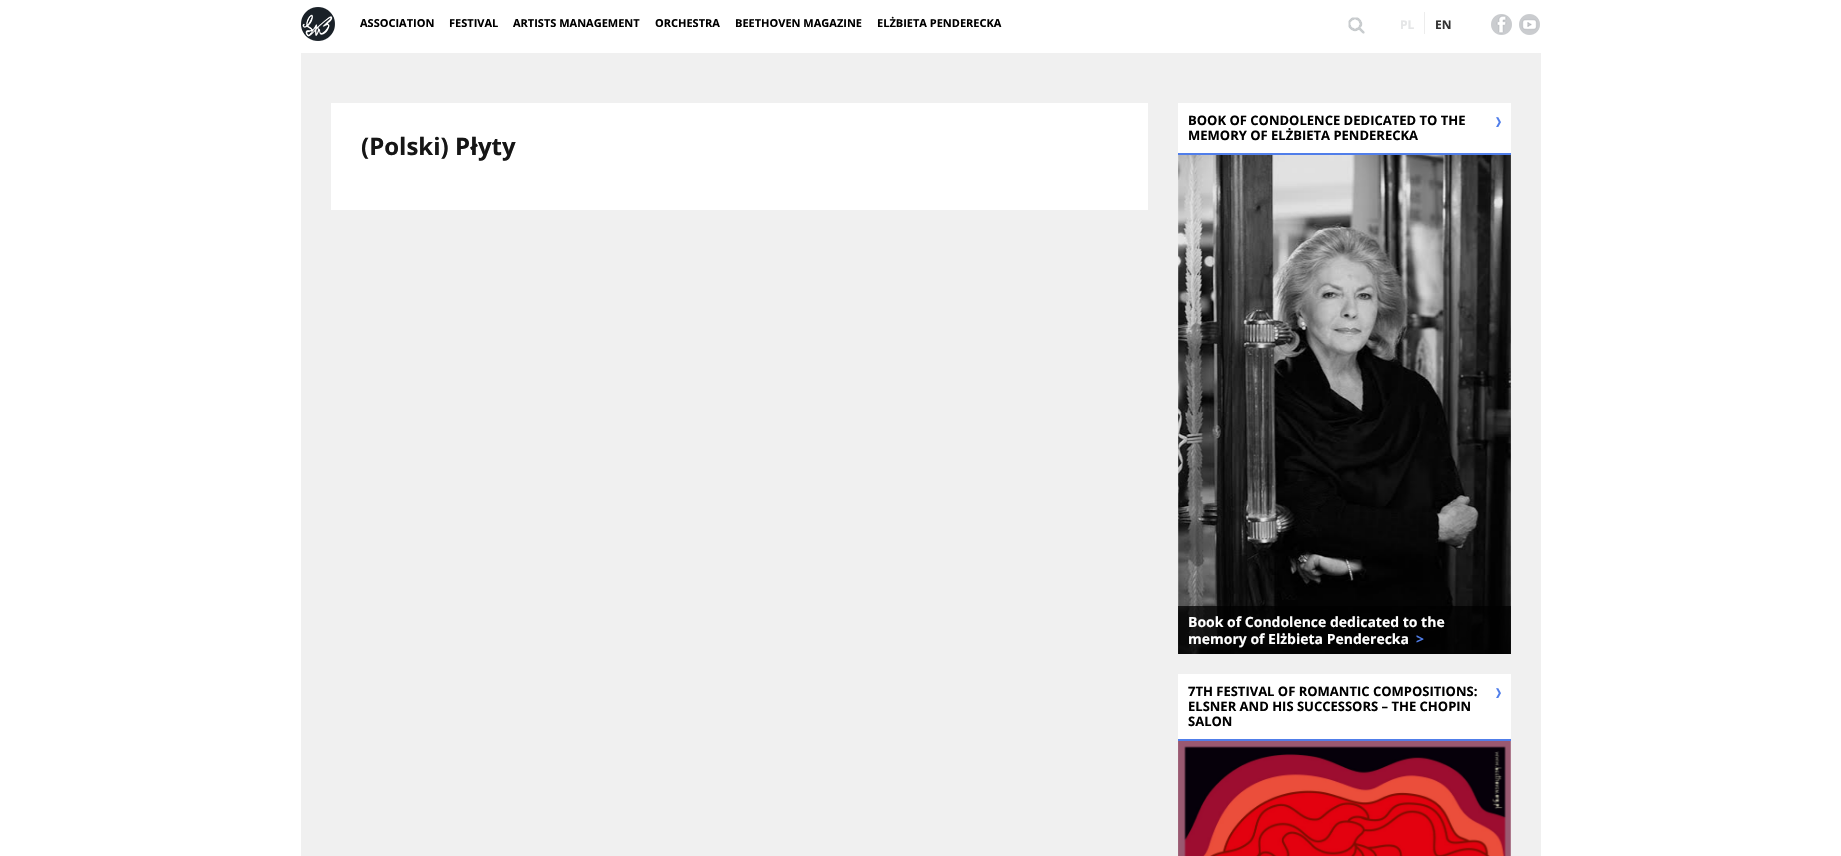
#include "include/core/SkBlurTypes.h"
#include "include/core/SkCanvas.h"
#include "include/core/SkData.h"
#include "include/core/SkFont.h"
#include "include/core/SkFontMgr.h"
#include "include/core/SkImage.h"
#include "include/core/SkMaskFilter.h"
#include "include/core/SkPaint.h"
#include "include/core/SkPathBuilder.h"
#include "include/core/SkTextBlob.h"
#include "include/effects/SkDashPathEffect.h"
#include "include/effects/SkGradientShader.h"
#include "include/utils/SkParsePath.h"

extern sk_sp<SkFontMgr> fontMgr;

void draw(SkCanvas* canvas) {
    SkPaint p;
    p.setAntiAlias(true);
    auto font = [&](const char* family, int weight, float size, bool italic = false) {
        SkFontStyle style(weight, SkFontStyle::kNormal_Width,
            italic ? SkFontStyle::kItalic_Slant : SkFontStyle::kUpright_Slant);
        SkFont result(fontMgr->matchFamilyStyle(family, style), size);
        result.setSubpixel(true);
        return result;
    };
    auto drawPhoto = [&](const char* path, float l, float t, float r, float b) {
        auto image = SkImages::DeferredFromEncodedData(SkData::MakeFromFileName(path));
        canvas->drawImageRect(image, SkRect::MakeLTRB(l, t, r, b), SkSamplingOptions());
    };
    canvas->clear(0xFFFFFFFF);
    drawPhoto("media/1.png", 301, 7, 335, 41);
    auto font1 = font("Open Sans", 700, 11);
    p.setColor(0xFF000000);
    {
        const struct { const char* s; float x, y; } items[] = {
            {"ASSOCIATION", 360, 27},
            {"FESTIVAL", 449, 27},
            {"ARTISTS MANAGEMENT", 513, 27},
            {"ORCHESTRA", 655, 27},
            {"BEETHOVEN MAGAZINE", 735, 27},
            {"ELŻBIETA PENDERECKA", 877, 27},
        };
        for (auto [s, x, y] : items) {
            canvas->drawString(s, x, y, font1, p);
        }
    }
    drawPhoto("media/2.png", 1348, 17, 1365, 34);
    auto font2 = font("Open Sans", 700, 12);
    p.setColor(0xFFE5E6E7);
    canvas->drawString("PL", 1400, 29, font2, p);
    p.setColor(0xFF333333);
    canvas->drawString("EN", 1435, 29, font2, p);
    p.setColor(0xFFEDEDED);
    canvas->drawRect(SkRect::MakeLTRB(1424, 12, 1425, 34), p);
    drawPhoto("media/3.png", 1491, 14, 1512, 35);
    drawPhoto("media/4.png", 1519, 14, 1540, 35);
    p.setColor(0xFFF0F0F0);
    canvas->drawRect(SkRect::MakeLTRB(301, 53, 1541, 856), p);
    p.setColor(0xFFFFFFFF);
    canvas->drawRect(SkRect::MakeLTRB(331, 103, 1148, 210), p);
    auto font3 = font("Open Sans", 700, 24);
    p.setColor(0xFF161616);
    canvas->drawString("(Polski) Płyty", 361, 155, font3, p);
    p.setColor(0xFFFFFFFF);
    canvas->drawRect(SkRect::MakeLTRB(1178, 103, 1511, 153), p);
    p.setColor(0xFF507EEA);
    canvas->drawRect(SkRect::MakeLTRB(1178, 153, 1511, 155), p);
    auto font4 = font("Open Sans", 700, 13);
    p.setColor(0xFF000000);
    canvas->drawString("BOOK OF CONDOLENCE DEDICATED TO THE", 1188, 125, font4, p);
    canvas->drawString("MEMORY OF ELŻBIETA PENDERECKA", 1188, 140, font4, p);
    drawPhoto("media/5.png", 1496, 117, 1501, 127);
    drawPhoto("media/6.png", 1178, 155, 1511, 654);
    p.setColor(0xBF000000);
    canvas->drawRect(SkRect::MakeLTRB(1178, 606, 1511, 654), p);
    auto font5 = font("Open Sans", 700, 14);
    p.setColor(0xFFFFFFFF);
    canvas->drawString("Book of Condolence dedicated to the", 1188, 627, font5, p);
    canvas->drawString("memory of Elżbieta Penderecka", 1188, 644, font5, p);
    p.setColor(0xFF507EEA);
    canvas->drawString(">", 1416, 644, font5, p);
    p.setColor(0xFFFFFFFF);
    canvas->drawRect(SkRect::MakeLTRB(1178, 674, 1511, 739), p);
    p.setColor(0xFF507EEA);
    canvas->drawRect(SkRect::MakeLTRB(1178, 739, 1511, 741), p);
    p.setColor(0xFF000000);
    {
        const struct { const char* s; float x, y; } items[] = {
            {"7TH FESTIVAL OF ROMANTIC COMPOSITIONS:", 1188, 696},
            {"ELSNER AND HIS SUCCESSORS – THE CHOPIN", 1188, 711},
            {"SALON", 1188, 726},
        };
        for (auto [s, x, y] : items) {
            canvas->drawString(s, x, y, font4, p);
        }
    }
    drawPhoto("media/5.png", 1496, 688, 1501, 698);
    drawPhoto("media/7.png", 1178, 741, 1511, 856);
}
